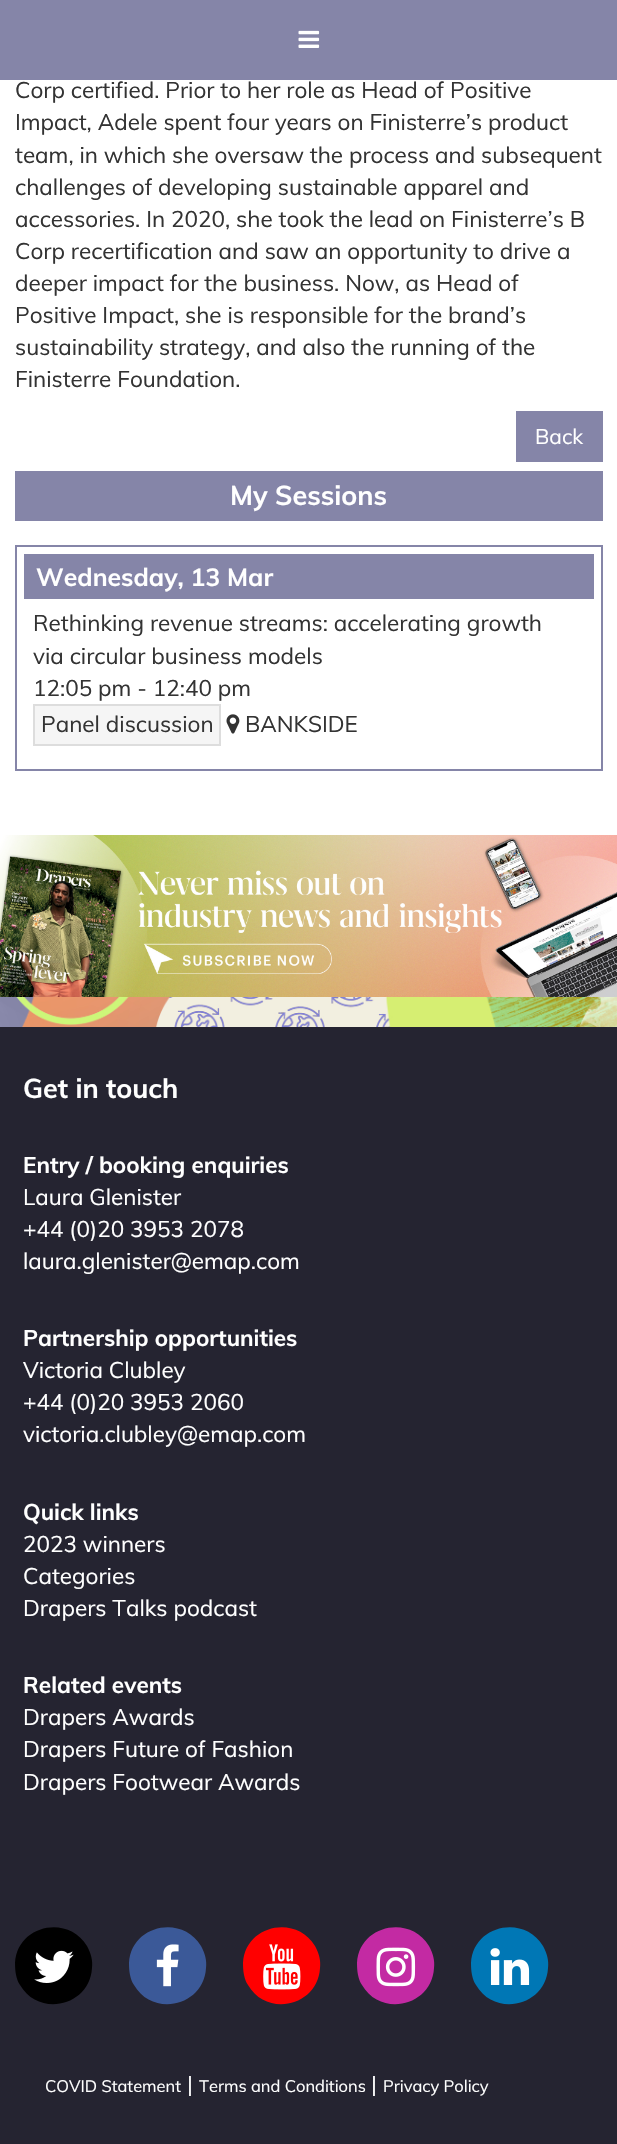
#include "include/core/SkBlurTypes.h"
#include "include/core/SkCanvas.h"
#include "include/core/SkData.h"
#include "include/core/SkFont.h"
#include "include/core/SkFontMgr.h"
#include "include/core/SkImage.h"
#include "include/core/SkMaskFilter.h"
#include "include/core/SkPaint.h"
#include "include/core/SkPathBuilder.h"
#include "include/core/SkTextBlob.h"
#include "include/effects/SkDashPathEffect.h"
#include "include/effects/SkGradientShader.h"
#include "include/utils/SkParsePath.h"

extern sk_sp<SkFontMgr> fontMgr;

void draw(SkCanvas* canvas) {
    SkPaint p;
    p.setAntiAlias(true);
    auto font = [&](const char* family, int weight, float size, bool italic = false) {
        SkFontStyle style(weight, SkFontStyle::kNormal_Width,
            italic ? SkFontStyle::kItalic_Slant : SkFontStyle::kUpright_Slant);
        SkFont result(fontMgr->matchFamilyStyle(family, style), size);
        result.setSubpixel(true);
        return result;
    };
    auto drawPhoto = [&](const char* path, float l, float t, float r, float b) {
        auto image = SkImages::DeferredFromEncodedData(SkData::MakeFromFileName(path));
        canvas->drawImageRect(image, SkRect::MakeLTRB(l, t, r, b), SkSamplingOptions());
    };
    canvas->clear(0xFFFFFFFF);
    p.setColor(0xFF8585A8);
    canvas->drawRect(SkRect::MakeLTRB(0, 0, 617, 80), p);
    drawPhoto("media/1.png", 298, 30, 320, 48);
    auto font1 = font("Muli", 400, 22.5f);
    p.setColor(0xFF333333);
    {
        const struct { const char* s; float x, y; } items[] = {
            {"Corp certified. Prior to her role as Head of Positive", 15, 98},
            {"Impact, Adele spent four years on Finisterre’s product", 15, 130},
            {"team, in which she oversaw the process and subsequent", 15, 163},
            {"challenges of developing sustainable apparel and", 15, 195},
            {"accessories. In 2020, she took the lead on Finisterre’s B", 15, 227},
            {"Corp recertification and saw an opportunity to drive a", 15, 259},
            {"deeper impact for the business. Now, as Head of", 15, 291},
            {"Positive Impact, she is responsible for the brand’s", 15, 323},
            {"sustainability strategy, and also the running of the", 15, 355},
            {"Finisterre Foundation.", 15, 387},
        };
        for (auto [s, x, y] : items) {
            canvas->drawString(s, x, y, font1, p);
        }
    }
    p.setColor(0xFF8585A8);
    canvas->drawRect(SkRect::MakeLTRB(516, 411, 603, 462), p);
    auto font2 = font("Muli", 400, 21);
    p.setColor(0xFFFFFFFF);
    canvas->drawString("Back", 535, 444, font2, p);
    p.setColor(0xFF8585A8);
    canvas->drawRect(SkRect::MakeLTRB(15, 471, 603, 521), p);
    auto font3 = font("Muli", 700, 27);
    p.setColor(0xFFFFFFFF);
    canvas->drawString("My Sessions", 230, 505, font3, p);
    p.setStyle(SkPaint::kStroke_Style);
    p.setStrokeWidth(2);
    p.setColor(0xFF8585A8);
    canvas->drawRect(SkRect::MakeLTRB(16, 546, 602, 770), p);
    p.setStyle(SkPaint::kFill_Style);
    canvas->drawRect(SkRect::MakeLTRB(24, 554, 594, 599), p);
    auto font4 = font("Muli", 700, 24.75f);
    p.setColor(0xFFFFFFFF);
    canvas->drawString("Wednesday, 13 Mar", 36, 586, font4, p);
    p.setColor(0xFF333333);
    {
        const struct { const char* s; float x, y; } items[] = {
            {"Rethinking revenue streams: accelerating growth", 33, 631},
            {"via circular business models", 33, 664},
            {"12:05 pm - 12:40 pm", 33, 696},
        };
        for (auto [s, x, y] : items) {
            canvas->drawString(s, x, y, font1, p);
        }
    }
    p.setColor(0xFFF5F5F5);
    canvas->drawRect(SkRect::MakeLTRB(34, 705, 220, 745), p);
    p.setStyle(SkPaint::kStroke_Style);
    p.setColor(0xFFDDDDDD);
    canvas->drawRect(SkRect::MakeLTRB(34, 705, 220, 745), p);
    p.setStyle(SkPaint::kFill_Style);
    p.setColor(0xFF333333);
    canvas->drawString("Panel discussion", 41, 732, font1, p);
    drawPhoto("media/2.png", 226, 714, 240, 734);
    canvas->drawString("BANKSIDE", 245, 732, font1, p);
    drawPhoto("media/3.png", 0, 835, 617, 997);
    p.setColor(0xFF252431);
    canvas->drawRect(SkRect::MakeLTRB(0, 1027, 617, 2144), p);
    drawPhoto("media/4.png", 0, 997, 617, 1027);
    p.setColor(0xFFFFFFFF);
    canvas->drawString("Get in touch", 23, 1098, font3, p);
    auto font5 = font("Muli", 700, 22.5f);
    canvas->drawString("Entry / booking enquiries", 23, 1173, font5, p);
    {
        const struct { const char* s; float x, y; } items[] = {
            {"Laura Glenister", 23, 1205},
            {"+44 (0)20 3953 2078", 23, 1237},
            {"laura.glenister@emap.com", 23, 1269},
        };
        for (auto [s, x, y] : items) {
            canvas->drawString(s, x, y, font1, p);
        }
    }
    canvas->drawString("Partnership opportunities", 23, 1346, font5, p);
    {
        const struct { const char* s; float x, y; } items[] = {
            {"Victoria Clubley", 23, 1378},
            {"+44 (0)20 3953 2060", 23, 1410},
            {"victoria.clubley@emap.com", 23, 1442},
        };
        for (auto [s, x, y] : items) {
            canvas->drawString(s, x, y, font1, p);
        }
    }
    canvas->drawString("Quick links", 23, 1520, font5, p);
    {
        const struct { const char* s; float x, y; } items[] = {
            {"2023 winners", 23, 1552},
            {"Categories", 23, 1584},
            {"Drapers Talks podcast", 23, 1616},
        };
        for (auto [s, x, y] : items) {
            canvas->drawString(s, x, y, font1, p);
        }
    }
    canvas->drawString("Related events", 23, 1693, font5, p);
    {
        const struct { const char* s; float x, y; } items[] = {
            {"Drapers Awards", 23, 1725},
            {"Drapers Future of Fashion", 23, 1757},
            {"Drapers Footwear Awards", 23, 1790},
        };
        for (auto [s, x, y] : items) {
            canvas->drawString(s, x, y, font1, p);
        }
    }
    p.setColor(0xFF000000);
    canvas->drawPath(SkPathBuilder().moveTo(87, 1946).cubicTo(91, 1953, 93, 1961, 92, 1968).cubicTo(90, 2006, 39, 2018, 20, 1985).cubicTo(16, 1979, 15, 1971, 15, 1963).cubicTo(17, 1925, 68, 1914, 87, 1946).close().detach(), p);
    drawPhoto("media/5.png", 34, 1950, 74, 1983);
    p.setColor(0xFF3B5998);
    canvas->drawPath(SkPathBuilder().moveTo(201, 1946).cubicTo(205, 1953, 207, 1961, 206, 1968).cubicTo(204, 2006, 153, 2018, 134, 1985).cubicTo(130, 1979, 129, 1971, 129, 1963).cubicTo(131, 1925, 182, 1914, 201, 1946).close().detach(), p);
    drawPhoto("media/6.png", 156, 1944, 179, 1987);
    p.setColor(0xFFFF0000);
    canvas->drawPath(SkPathBuilder().moveTo(315, 1946).cubicTo(319, 1953, 321, 1961, 320, 1968).cubicTo(318, 2006, 267, 2018, 248, 1985).cubicTo(244, 1979, 243, 1971, 243, 1963).cubicTo(245, 1925, 296, 1914, 315, 1946).close().detach(), p);
    drawPhoto("media/7.png", 263, 1944, 301, 1990);
    p.setColor(0xFFC32AA3);
    canvas->drawPath(SkPathBuilder().moveTo(429, 1946).cubicTo(433, 1953, 435, 1961, 434, 1968).cubicTo(432, 2006, 381, 2018, 362, 1985).cubicTo(358, 1979, 357, 1971, 357, 1963).cubicTo(359, 1925, 410, 1914, 429, 1946).close().detach(), p);
    drawPhoto("media/8.png", 376, 1947, 416, 1987);
    p.setColor(0xFF0077B5);
    canvas->drawPath(SkPathBuilder().moveTo(543, 1946).cubicTo(547, 1953, 549, 1961, 548, 1968).cubicTo(546, 2006, 495, 2018, 476, 1985).cubicTo(472, 1979, 471, 1971, 471, 1963).cubicTo(473, 1925, 524, 1914, 543, 1946).close().detach(), p);
    drawPhoto("media/9.png", 490, 1948, 530, 1985);
    auto font6 = font("Muli", 400, 16.5f);
    p.setColor(0xFFFFFFFF);
    canvas->drawString("COVID Statement", 45, 2092, font6, p);
    canvas->drawString("|", 187, 2092, font1, p);
    canvas->drawString("Terms and Conditions", 199, 2092, font6, p);
    canvas->drawString("|", 371, 2092, font1, p);
    canvas->drawString("Privacy Policy", 383, 2092, font6, p);
}
